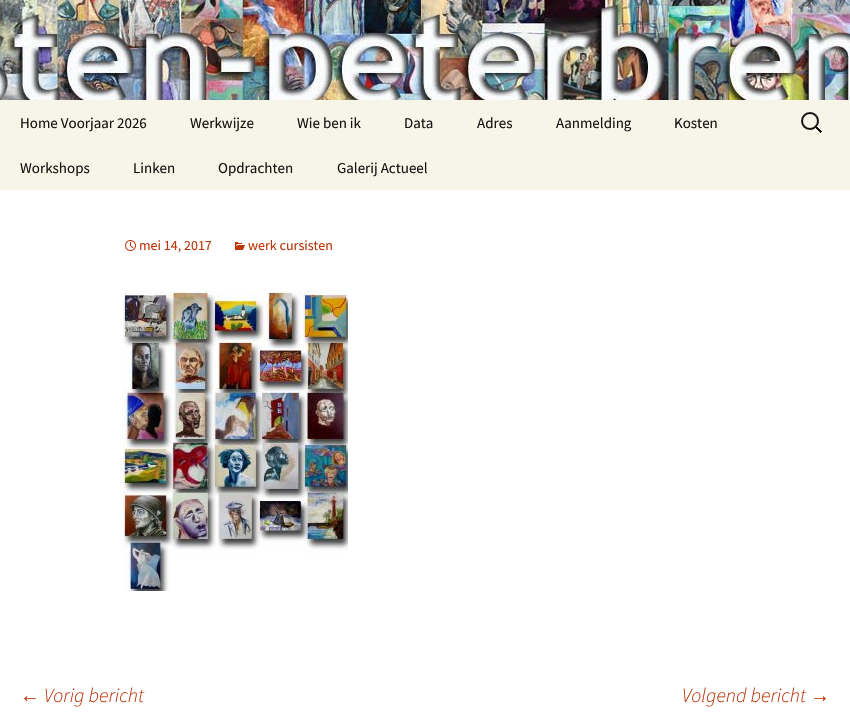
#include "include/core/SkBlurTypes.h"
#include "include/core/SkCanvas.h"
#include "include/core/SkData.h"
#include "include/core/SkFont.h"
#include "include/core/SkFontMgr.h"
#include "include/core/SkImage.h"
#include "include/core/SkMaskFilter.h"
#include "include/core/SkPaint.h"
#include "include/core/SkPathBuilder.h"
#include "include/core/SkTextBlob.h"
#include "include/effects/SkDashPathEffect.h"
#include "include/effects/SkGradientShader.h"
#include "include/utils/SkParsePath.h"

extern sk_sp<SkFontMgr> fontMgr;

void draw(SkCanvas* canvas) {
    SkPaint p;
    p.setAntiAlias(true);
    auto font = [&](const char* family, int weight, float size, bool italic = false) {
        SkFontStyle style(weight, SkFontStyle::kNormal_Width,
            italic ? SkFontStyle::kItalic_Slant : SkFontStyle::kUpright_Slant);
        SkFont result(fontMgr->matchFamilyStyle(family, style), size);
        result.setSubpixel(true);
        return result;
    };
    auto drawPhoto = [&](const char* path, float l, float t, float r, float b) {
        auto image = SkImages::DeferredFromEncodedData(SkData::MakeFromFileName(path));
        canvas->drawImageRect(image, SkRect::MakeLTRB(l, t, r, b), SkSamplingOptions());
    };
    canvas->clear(0xFFFFFFFF);
    drawPhoto("media/1.png", 0, 0, 850, 100);
    p.setColor(0xFFF7F5E7);
    canvas->drawRect(SkRect::MakeLTRB(0, 100, 850, 190), p);
    auto font1 = font("Source Sans Pro", 400, 15);
    p.setColor(0xFF141412);
    {
        const struct { const char* s; float x, y; } items[] = {
            {"Home Voorjaar 2026", 20, 128},
            {"Werkwijze", 190, 128},
            {"Wie ben ik", 297, 128},
            {"Data", 404, 128},
            {"Adres", 477, 128},
            {"Aanmelding", 556, 128},
            {"Kosten", 674, 128},
            {"Workshops", 20, 173},
            {"Linken", 133, 173},
            {"Opdrachten", 218, 173},
            {"Galerij Actueel", 337, 173},
        };
        for (auto [s, x, y] : items) {
            canvas->drawString(s, x, y, font1, p);
        }
    }
    drawPhoto("media/2.png", 801, 112, 822, 133);
    drawPhoto("media/3.png", 125, 240, 136, 251);
    auto font2 = font("Source Sans Pro", 400, 14);
    p.setColor(0xFFBC360A);
    canvas->drawString("mei 14, 2017", 139, 250, font2, p);
    drawPhoto("media/4.png", 235, 242, 245, 250);
    canvas->drawString("werk cursisten", 248, 250, font2, p);
    drawPhoto("media/5.png", 123, 291, 348, 591);
    auto font3 = font("Liberation Sans", 400, 20, true);
    canvas->drawString("←", 20, 702, font3, p);
    auto font4 = font("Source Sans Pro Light", 300, 20, true);
    canvas->drawString("Vorig bericht", 44, 702, font4, p);
    canvas->drawString("Volgend bericht", 682, 702, font4, p);
    canvas->drawString("→", 810, 702, font3, p);
}
